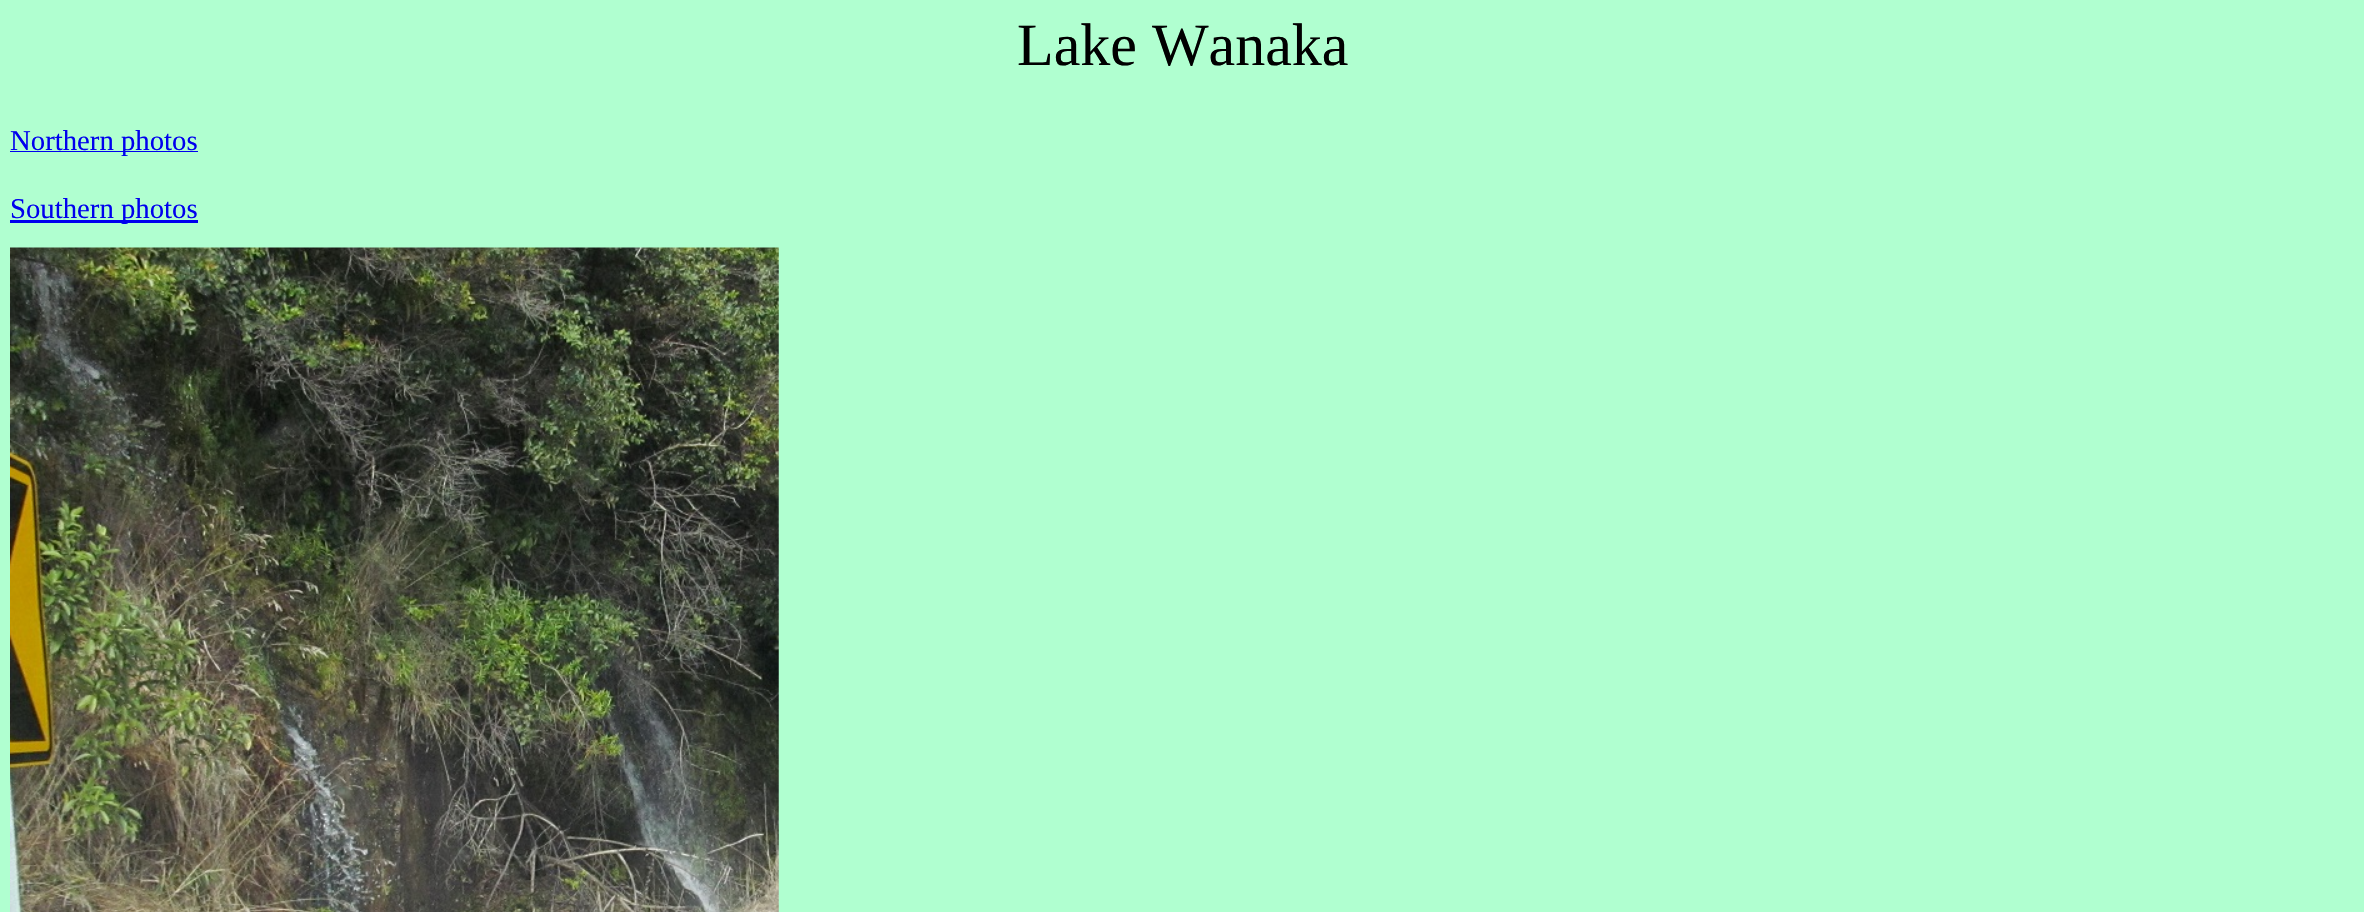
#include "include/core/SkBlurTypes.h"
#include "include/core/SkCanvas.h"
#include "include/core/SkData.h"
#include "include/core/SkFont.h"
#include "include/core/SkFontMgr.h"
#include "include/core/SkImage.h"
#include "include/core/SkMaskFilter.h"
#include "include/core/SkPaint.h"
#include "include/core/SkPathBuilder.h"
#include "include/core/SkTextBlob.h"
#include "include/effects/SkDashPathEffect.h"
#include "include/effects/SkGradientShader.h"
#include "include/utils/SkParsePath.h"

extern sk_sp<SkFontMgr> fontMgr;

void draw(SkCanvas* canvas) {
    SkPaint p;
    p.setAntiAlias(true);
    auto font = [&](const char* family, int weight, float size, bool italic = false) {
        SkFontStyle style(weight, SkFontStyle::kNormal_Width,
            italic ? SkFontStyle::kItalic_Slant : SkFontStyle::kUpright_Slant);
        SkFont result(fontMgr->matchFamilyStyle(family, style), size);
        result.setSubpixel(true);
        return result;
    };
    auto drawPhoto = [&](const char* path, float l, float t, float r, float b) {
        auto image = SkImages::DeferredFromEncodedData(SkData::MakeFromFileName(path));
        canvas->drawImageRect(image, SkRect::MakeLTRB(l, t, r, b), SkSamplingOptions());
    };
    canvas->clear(0xFFB0FFD0);
    auto font1 = font("Liberation Serif", 400, 60);
    p.setColor(0xFF000000);
    canvas->drawString("Lake Wanaka", 1017, 65, font1, p);
    p.setColor(0xFF0000EE);
    canvas->drawRect(SkRect::MakeLTRB(10, 151, 198, 152), p);
    auto font2 = font("Liberation Serif", 400, 28.75f);
    canvas->drawString("Northern photos", 10, 150, font2, p);
    canvas->drawRect(SkRect::MakeLTRB(10, 220, 198, 223), p);
    canvas->drawString("Southern photos", 10, 218, font2, p);
    drawPhoto("media/1.png", 10, 247, 779, 912);
}
